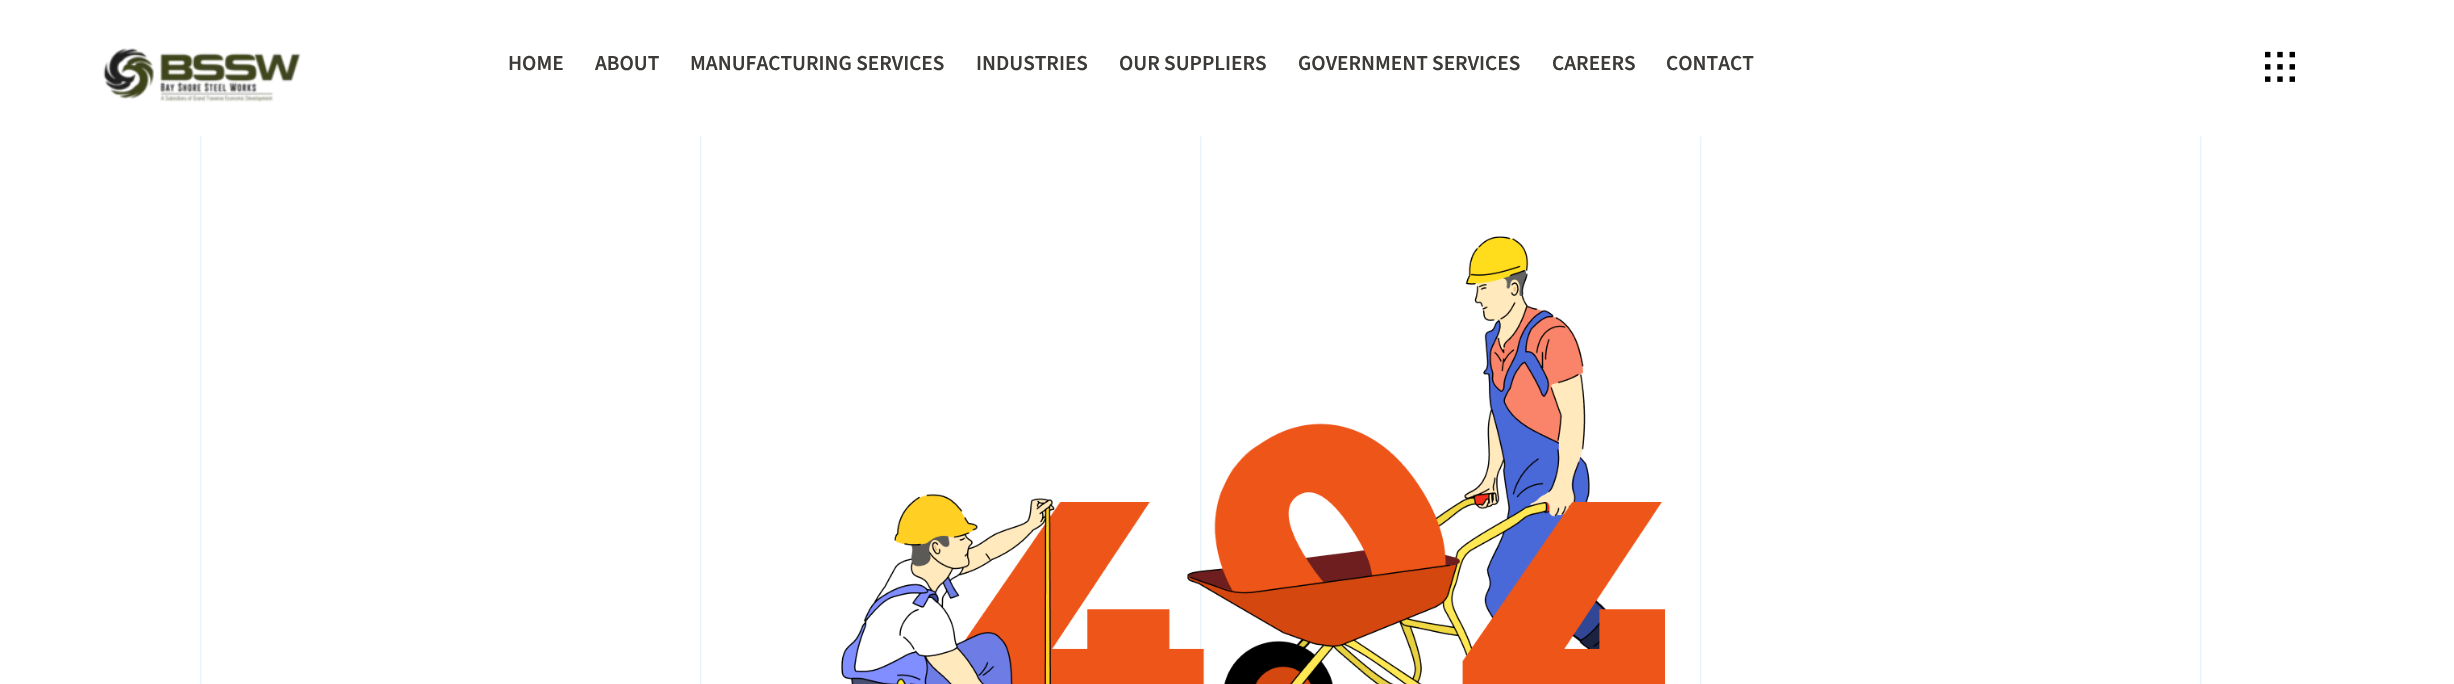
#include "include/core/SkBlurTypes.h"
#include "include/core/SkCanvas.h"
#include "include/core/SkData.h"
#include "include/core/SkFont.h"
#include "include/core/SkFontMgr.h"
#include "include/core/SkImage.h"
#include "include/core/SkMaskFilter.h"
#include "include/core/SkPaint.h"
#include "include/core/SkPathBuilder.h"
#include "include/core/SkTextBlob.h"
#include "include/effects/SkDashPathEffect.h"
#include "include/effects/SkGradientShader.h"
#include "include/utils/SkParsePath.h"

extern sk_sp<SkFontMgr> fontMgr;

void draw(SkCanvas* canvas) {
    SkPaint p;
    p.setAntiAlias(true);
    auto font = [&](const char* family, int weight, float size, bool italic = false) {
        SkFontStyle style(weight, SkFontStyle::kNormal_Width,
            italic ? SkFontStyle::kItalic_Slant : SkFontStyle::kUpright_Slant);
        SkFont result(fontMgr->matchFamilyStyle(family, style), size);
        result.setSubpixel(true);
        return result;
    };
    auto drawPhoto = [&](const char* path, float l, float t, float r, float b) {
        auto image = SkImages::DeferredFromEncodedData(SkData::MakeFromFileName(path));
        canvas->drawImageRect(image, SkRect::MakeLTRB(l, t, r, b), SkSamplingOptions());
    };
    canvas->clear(0xFFFFFFFF);
    drawPhoto("media/1.png", 103, 48, 301, 102);
    auto font1 = font("Source Sans 3", 600, 21.25f);
    p.setColor(0xFF3D3B38);
    {
        const struct { const char* s; float x, y; } items[] = {
            {"HOME", 508, 70},
            {"ABOUT", 595, 70},
            {"MANUFACTURING SERVICES", 690, 70},
            {"INDUSTRIES", 976, 70},
            {"OUR SUPPLIERS", 1119, 70},
            {"GOVERNMENT SERVICES", 1298, 70},
            {"CAREERS", 1552, 70},
            {"CONTACT", 1666, 70},
        };
        for (auto [s, x, y] : items) {
            canvas->drawString(s, x, y, font1, p);
        }
    }
    drawPhoto("media/2.png", 2265, 51, 2295, 82);
    drawPhoto("media/3.png", 200, 136, 2202, 684);
    drawPhoto("media/4.png", 841, 236, 1665, 684);
}
